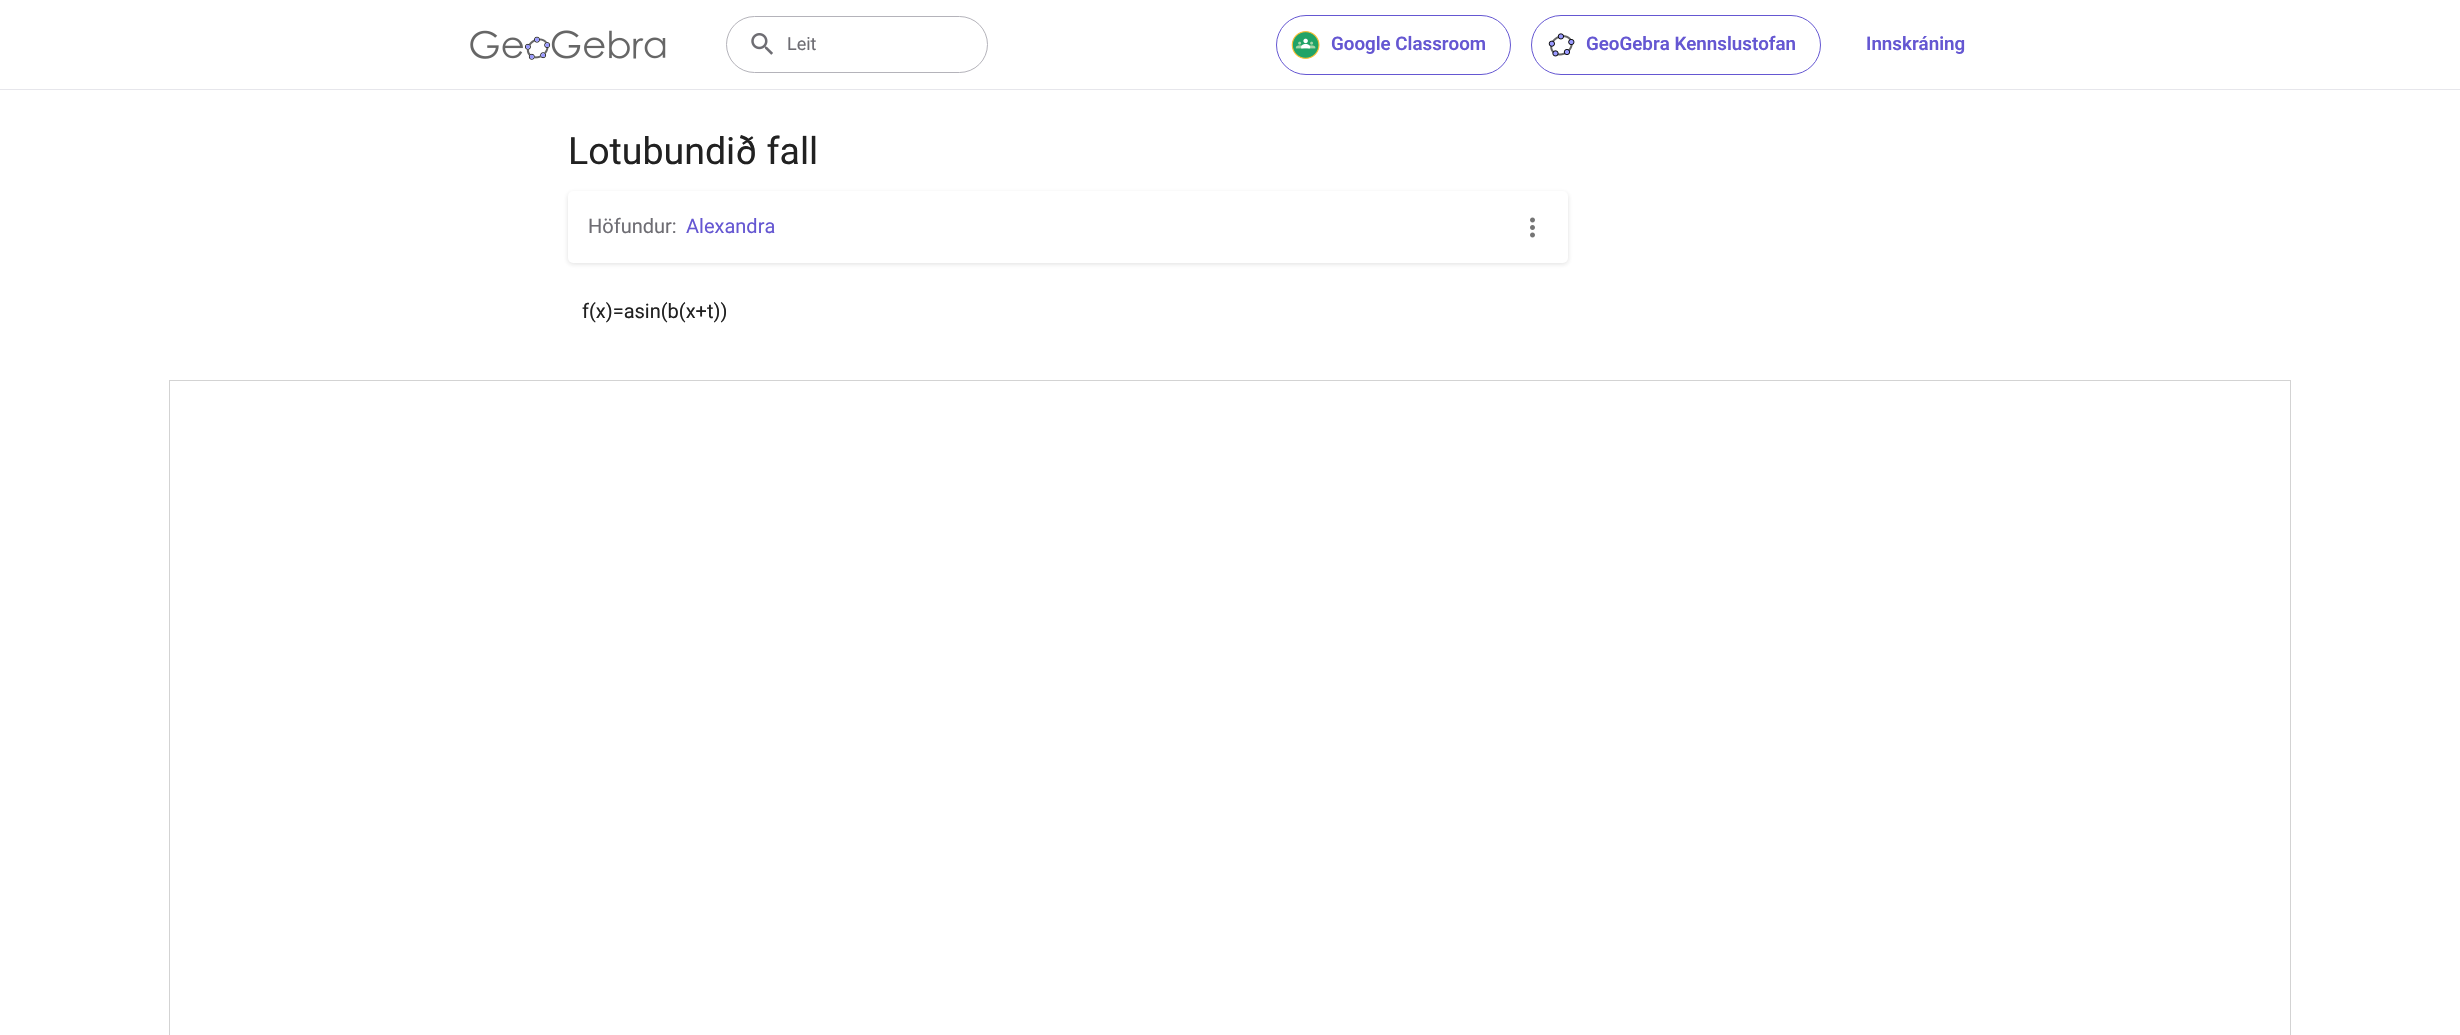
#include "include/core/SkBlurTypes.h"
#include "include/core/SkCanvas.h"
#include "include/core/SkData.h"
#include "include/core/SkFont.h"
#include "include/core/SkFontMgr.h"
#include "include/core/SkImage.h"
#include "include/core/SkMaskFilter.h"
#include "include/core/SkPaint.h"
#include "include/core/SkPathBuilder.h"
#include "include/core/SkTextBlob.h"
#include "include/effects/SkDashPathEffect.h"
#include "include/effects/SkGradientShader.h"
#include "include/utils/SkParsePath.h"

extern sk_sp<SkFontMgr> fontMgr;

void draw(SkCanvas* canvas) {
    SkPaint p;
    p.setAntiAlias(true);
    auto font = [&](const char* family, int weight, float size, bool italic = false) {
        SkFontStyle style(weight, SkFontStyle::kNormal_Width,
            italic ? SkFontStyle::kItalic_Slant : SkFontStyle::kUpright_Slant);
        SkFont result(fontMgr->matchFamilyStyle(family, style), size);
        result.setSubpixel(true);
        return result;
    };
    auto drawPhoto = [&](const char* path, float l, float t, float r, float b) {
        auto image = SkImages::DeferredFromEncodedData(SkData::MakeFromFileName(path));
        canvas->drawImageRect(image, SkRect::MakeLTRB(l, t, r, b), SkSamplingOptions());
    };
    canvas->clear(0xFFFFFFFF);
    p.setColor(0xFFE6E6EB);
    canvas->drawRect(SkRect::MakeLTRB(0, 89, 2460, 90), p);
    drawPhoto("media/1.png", 470, 30, 666, 60);
    p.setStyle(SkPaint::kStroke_Style);
    p.setStrokeWidth(1);
    p.setColor(0xFFB4B3BA);
    canvas->drawRoundRect(SkRect::MakeLTRB(726.5f, 16.5f, 987.5f, 72.5f), 28, 28, p);
    drawPhoto("media/2.png", 751, 33, 773, 55);
    auto font1 = font("Roboto", 400, 18);
    p.setStyle(SkPaint::kFill_Style);
    p.setColor(0xFF6E6D73);
    canvas->drawString("Leit", 787, 50, font1, p);
    p.setStyle(SkPaint::kStroke_Style);
    p.setColor(0xFF6557D2);
    canvas->drawRoundRect(SkRect::MakeLTRB(1276.5f, 15.5f, 1510.5f, 74.5f), 29.5f, 29.5f, p);
    drawPhoto("media/3.png", 1291, 31, 1320, 59);
    auto font2 = font("Roboto", 600, 18.75f);
    p.setStyle(SkPaint::kFill_Style);
    canvas->drawString("Google Classroom", 1331, 50, font2, p);
    p.setStyle(SkPaint::kStroke_Style);
    canvas->drawRoundRect(SkRect::MakeLTRB(1531.5f, 15.5f, 1820.5f, 74.5f), 29.5f, 29.5f, p);
    drawPhoto("media/4.png", 1548, 33, 1575, 57);
    p.setStyle(SkPaint::kFill_Style);
    canvas->drawString("GeoGebra Kennslustofan", 1586, 50, font2, p);
    canvas->drawString("Innskráning", 1866, 50, font2, p);
    auto font3 = font("Roboto", 400, 37.5f);
    p.setColor(0xFF212121);
    canvas->drawString("Lotubundið fall", 568, 164, font3, p);
    p.setColor(0x241C1C1F);
    p.setMaskFilter(SkMaskFilter::MakeBlur(kNormal_SkBlurStyle, 2.5f));
    canvas->drawRoundRect(SkRect::MakeLTRB(568, 193, 1568, 264), 5, 5, p);
    p.setMaskFilter(nullptr);
    p.setColor(0xFFFFFFFF);
    canvas->drawRoundRect(SkRect::MakeLTRB(568, 191, 1568, 263), 5, 5, p);
    auto font4 = font("Roboto", 400, 20);
    p.setColor(0xFF6E6D73);
    canvas->drawString("Höfundur:", 588, 233, font4, p);
    p.setColor(0xFF6557D2);
    canvas->drawString("Alexandra", 686, 233, font4, p);
    drawPhoto("media/5.png", 1530, 217, 1535, 238);
    p.setColor(0xFF212121);
    canvas->drawString("f(x)=asin(b(x+t))", 582, 318, font4, p);
    p.setStyle(SkPaint::kStroke_Style);
    p.setColor(0xFFD3D3D3);
    canvas->drawRect(SkRect::MakeLTRB(169.5f, 380.5f, 2290.5f, 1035.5f), p);
}
